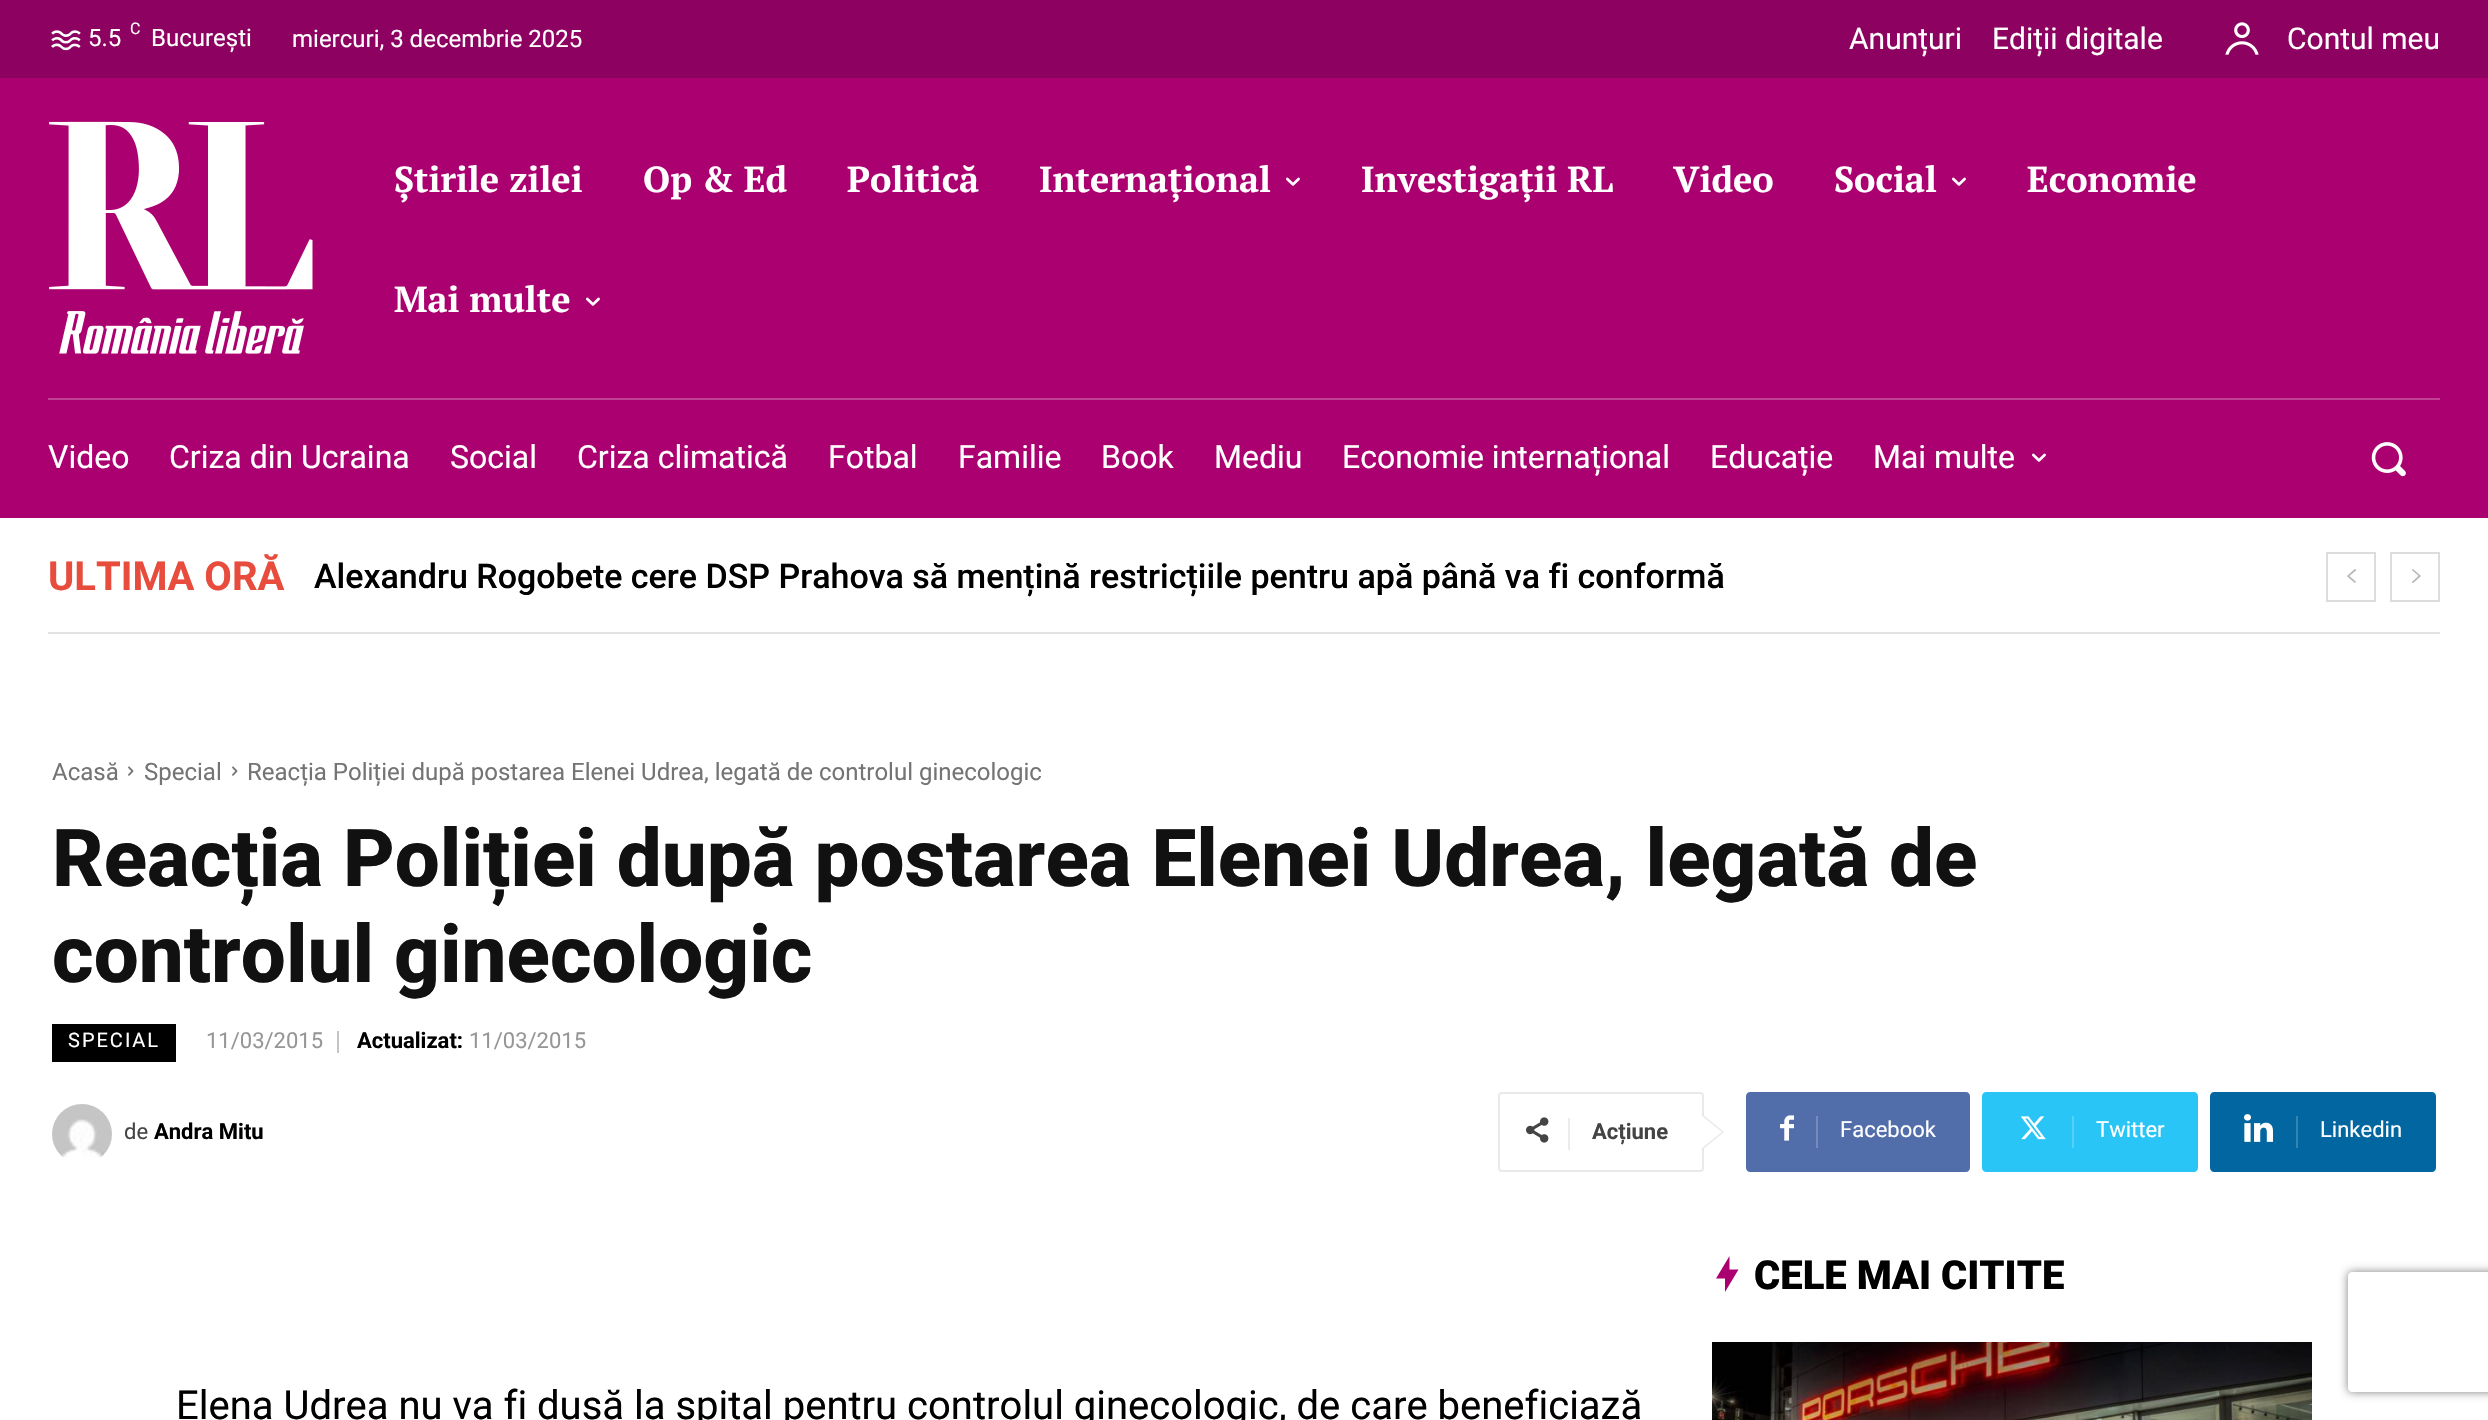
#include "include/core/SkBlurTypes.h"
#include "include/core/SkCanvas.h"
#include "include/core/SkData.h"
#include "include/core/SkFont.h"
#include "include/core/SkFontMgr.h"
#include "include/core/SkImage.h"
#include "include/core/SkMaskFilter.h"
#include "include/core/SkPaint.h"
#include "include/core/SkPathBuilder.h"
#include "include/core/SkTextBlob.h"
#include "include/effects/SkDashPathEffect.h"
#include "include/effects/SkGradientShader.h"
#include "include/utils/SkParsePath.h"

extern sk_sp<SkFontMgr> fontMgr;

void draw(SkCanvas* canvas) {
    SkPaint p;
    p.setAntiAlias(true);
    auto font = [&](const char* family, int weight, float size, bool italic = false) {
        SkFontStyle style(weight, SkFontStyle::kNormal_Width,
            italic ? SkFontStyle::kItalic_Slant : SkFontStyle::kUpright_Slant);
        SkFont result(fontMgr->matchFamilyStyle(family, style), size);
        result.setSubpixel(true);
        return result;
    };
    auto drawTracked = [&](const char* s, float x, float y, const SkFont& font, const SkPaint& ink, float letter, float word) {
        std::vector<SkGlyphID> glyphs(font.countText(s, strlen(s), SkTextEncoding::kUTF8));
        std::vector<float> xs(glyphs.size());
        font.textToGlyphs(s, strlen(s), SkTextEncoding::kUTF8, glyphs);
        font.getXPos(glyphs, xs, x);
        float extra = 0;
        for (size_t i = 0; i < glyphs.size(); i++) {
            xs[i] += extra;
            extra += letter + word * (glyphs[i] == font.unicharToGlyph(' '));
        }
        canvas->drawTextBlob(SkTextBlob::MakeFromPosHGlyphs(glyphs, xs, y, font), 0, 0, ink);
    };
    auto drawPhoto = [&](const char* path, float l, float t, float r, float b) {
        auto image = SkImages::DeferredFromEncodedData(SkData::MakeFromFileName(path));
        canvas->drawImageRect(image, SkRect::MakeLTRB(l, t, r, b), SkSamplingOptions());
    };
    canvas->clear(0xFFFFFFFF);
    p.setColor(0xFF8D0160);
    canvas->drawRect(SkRect::MakeLTRB(0, 0, 2488, 78), p);
    drawPhoto("media/1.png", 51, 30, 81, 51);
    auto font1 = font("Roboto", 400, 24);
    p.setColor(0xFFFFFFFF);
    canvas->drawString("5.5", 88, 46, font1, p);
    auto font2 = font("Roboto", 400, 16);
    canvas->drawString("C", 130, 34, font2, p);
    canvas->drawString("București", 151, 46, font1, p);
    canvas->drawString("miercuri, 3 decembrie 2025", 292, 47, font1, p);
    auto font3 = font("Roboto", 400, 30);
    canvas->drawString("Anunțuri", 1849, 49, font3, p);
    canvas->drawString("Ediții digitale", 1992, 49, font3, p);
    drawPhoto("media/2.png", 2225, 22, 2259, 55);
    canvas->drawString("Contul meu", 2287, 49, font3, p);
    p.setColor(0xFFAB006F);
    canvas->drawRect(SkRect::MakeLTRB(0, 78, 2488, 518), p);
    drawPhoto("media/3.png", 49, 121, 313, 354);
    auto font4 = font("PT Serif", 700, 36);
    p.setColor(0xFFFFFFFF);
    {
        const struct { const char* s; float x, y; } items[] = {
            {"Știrile zilei", 394, 192},
            {"Op & Ed", 643, 192},
            {"Politică", 847, 192},
            {"Internațional", 1039, 192},
        };
        for (auto [s, x, y] : items) {
            canvas->drawString(s, x, y, font4, p);
        }
    }
    drawPhoto("media/4.png", 1286, 177, 1300, 186);
    {
        const struct { const char* s; float x, y; } items[] = {
            {"Investigații RL", 1361, 192},
            {"Video", 1673, 192},
            {"Social", 1834, 192},
        };
        for (auto [s, x, y] : items) {
            canvas->drawString(s, x, y, font4, p);
        }
    }
    drawPhoto("media/4.png", 1952, 177, 1966, 186);
    canvas->drawString("Economie", 2027, 192, font4, p);
    canvas->drawString("Mai multe", 394, 312, font4, p);
    drawPhoto("media/4.png", 586, 297, 600, 306);
    p.setColor(0xFFC04093);
    canvas->drawRect(SkRect::MakeLTRB(48, 398, 2440, 400), p);
    auto font5 = font("Roboto", 400, 32);
    p.setColor(0xFFFFFFFF);
    {
        const struct { const char* s; float x, y; } items[] = {
            {"Video", 48, 468},
            {"Criza din Ucraina", 169, 468},
            {"Social", 450, 468},
            {"Criza climatică", 577, 468},
            {"Fotbal", 828, 468},
            {"Familie", 958, 468},
            {"Book", 1101, 468},
            {"Mediu", 1214, 468},
            {"Economie internațional", 1342, 468},
            {"Educație", 1710, 468},
            {"Mai multe", 1873, 468},
        };
        for (auto [s, x, y] : items) {
            canvas->drawString(s, x, y, font5, p);
        }
    }
    drawPhoto("media/4.png", 2032, 453, 2046, 462);
    drawPhoto("media/5.png", 2371, 442, 2406, 477);
    p.setColor(0xFFE2E2E2);
    canvas->drawRect(SkRect::MakeLTRB(48, 632, 2440, 634), p);
    auto font6 = font("Roboto", 700, 40);
    p.setColor(0xFFE74C3C);
    canvas->drawString("ULTIMA ORĂ", 48, 590, font6, p);
    auto font7 = font("Roboto", 500, 34);
    p.setColor(0xFF000000);
    canvas->drawString("Alexandru Rogobete cere DSP Prahova să mențină restricțiile pentru apă până va fi conformă", 314, 588, font7, p);
    p.setStyle(SkPaint::kStroke_Style);
    p.setStrokeWidth(2);
    p.setColor(0xFFDCDCDC);
    canvas->drawRect(SkRect::MakeLTRB(2327, 553, 2375, 601), p);
    drawPhoto("media/6.png", 2347, 569, 2356, 583);
    canvas->drawRect(SkRect::MakeLTRB(2391, 553, 2439, 601), p);
    drawPhoto("media/7.png", 2412, 569, 2421, 583);
    p.setStyle(SkPaint::kFill_Style);
    p.setColor(0xFF747474);
    canvas->drawString("Acasă", 52, 780, font1, p);
    drawPhoto("media/8.png", 128, 766, 134, 776);
    canvas->drawString("Special", 144, 780, font1, p);
    drawPhoto("media/8.png", 232, 766, 238, 776);
    canvas->drawString("Reacția Poliției după postarea Elenei Udrea, legată de controlul ginecologic", 247, 780, font1, p);
    auto font8 = font("Roboto", 800, 80);
    p.setColor(0xFF111111);
    canvas->drawString("Reacția Poliției după postarea Elenei Udrea, legată de", 52, 886, font8, p);
    canvas->drawString("controlul ginecologic", 52, 982, font8, p);
    p.setColor(0xFF000000);
    canvas->drawRect(SkRect::MakeLTRB(52, 1024, 176, 1062), p);
    auto font9 = font("Roboto", 400, 20);
    p.setColor(0xFFFFFFFF);
    drawTracked("SPECIAL", 68, 1047, font9, p, 2, 0);
    auto font10 = font("Roboto", 400, 22);
    p.setColor(0xFF969696);
    canvas->drawString("11/03/2015", 206, 1048, font10, p);
    p.setColor(0xFFC4C4C4);
    canvas->drawRect(SkRect::MakeLTRB(337, 1031, 339, 1053), p);
    auto font11 = font("Roboto", 700, 22);
    p.setColor(0xFF000000);
    canvas->drawString("Actualizat:", 357, 1048, font11, p);
    p.setColor(0xFF969696);
    canvas->drawString("11/03/2015", 469, 1048, font10, p);
    drawPhoto("media/9.png", 52, 1104, 112, 1158);
    p.setColor(0xFF444444);
    canvas->drawString("de", 124, 1139, font10, p);
    p.setColor(0xFF000000);
    canvas->drawString("Andra Mitu", 154, 1139, font11, p);
    p.setStyle(SkPaint::kStroke_Style);
    p.setColor(0xFFE9E9E9);
    canvas->drawRoundRect(SkRect::MakeLTRB(1499, 1093, 1703, 1171), 3, 3, p);
    p.setStyle(SkPaint::kFill_Style);
    canvas->drawPath(SkPathBuilder().moveTo(1702, 1150).lineTo(1702, 1114).lineTo(1724, 1132).close().detach(), p);
    drawPhoto("media/10.png", 1526, 1117, 1549, 1143);
    p.setColor(0xFFEBEBEB);
    canvas->drawRect(SkRect::MakeLTRB(1568, 1118, 1570, 1150), p);
    p.setColor(0xFF444444);
    canvas->drawString("Acțiune", 1592, 1139, font11, p);
    p.setColor(0xFFFFFFFF);
    canvas->drawPath(SkPathBuilder().moveTo(1702, 1148).lineTo(1702, 1116).lineTo(1722, 1132).close().detach(), p);
    p.setColor(0xFF516EAB);
    canvas->drawPath(SkPathBuilder().moveTo(1816, 1092).lineTo(1966, 1092).cubicTo(1968, 1092, 1970, 1094, 1970, 1096).lineTo(1970, 1168).cubicTo(1970, 1170, 1968, 1172, 1966, 1172).lineTo(1816, 1172).close().detach(), p);
    canvas->drawPath(SkPathBuilder().moveTo(1750, 1092).lineTo(1828, 1092).lineTo(1828, 1172).lineTo(1750, 1172).cubicTo(1748, 1172, 1746, 1170, 1746, 1168).lineTo(1746, 1096).cubicTo(1746, 1094, 1748, 1092, 1750, 1092).close().detach(), p);
    drawPhoto("media/11.png", 1780, 1115, 1794, 1141);
    p.setColor(0xFF748BBC);
    canvas->drawRect(SkRect::MakeLTRB(1816, 1116, 1818, 1148), p);
    p.setColor(0xFFFFFFFF);
    canvas->drawString("Facebook", 1840, 1137, font10, p);
    p.setColor(0xFF29C5F6);
    canvas->drawPath(SkPathBuilder().moveTo(2072, 1092).lineTo(2194, 1092).cubicTo(2196, 1092, 2198, 1094, 2198, 1096).lineTo(2198, 1168).cubicTo(2198, 1170, 2196, 1172, 2194, 1172).lineTo(2072, 1172).close().detach(), p);
    canvas->drawPath(SkPathBuilder().moveTo(1986, 1092).lineTo(2084, 1092).lineTo(2084, 1172).lineTo(1986, 1172).cubicTo(1984, 1172, 1982, 1170, 1982, 1168).lineTo(1982, 1096).cubicTo(1982, 1094, 1984, 1092, 1986, 1092).close().detach(), p);
    drawPhoto("media/12.png", 2020, 1116, 2046, 1140);
    p.setColor(0xFF54D1F8);
    canvas->drawRect(SkRect::MakeLTRB(2072, 1116, 2074, 1148), p);
    p.setColor(0xFFFFFFFF);
    canvas->drawString("Twitter", 2096, 1137, font10, p);
    p.setColor(0xFF0266A0);
    canvas->drawPath(SkPathBuilder().moveTo(2296, 1092).lineTo(2432, 1092).cubicTo(2434, 1092, 2436, 1094, 2436, 1096).lineTo(2436, 1168).cubicTo(2436, 1170, 2434, 1172, 2432, 1172).lineTo(2296, 1172).close().detach(), p);
    canvas->drawPath(SkPathBuilder().moveTo(2214, 1092).lineTo(2308, 1092).lineTo(2308, 1172).lineTo(2214, 1172).cubicTo(2212, 1172, 2210, 1170, 2210, 1168).lineTo(2210, 1096).cubicTo(2210, 1094, 2212, 1092, 2214, 1092).close().detach(), p);
    drawPhoto("media/13.png", 2244, 1114, 2273, 1142);
    p.setColor(0xFF3585B3);
    canvas->drawRect(SkRect::MakeLTRB(2296, 1116, 2298, 1148), p);
    p.setColor(0xFFFFFFFF);
    canvas->drawString("Linkedin", 2320, 1137, font10, p);
    p.setColor(0xFFAB006F);
    canvas->drawPath(SkPathBuilder().moveTo(1729.5f, 1256).lineTo(1729.5f, 1269.5f).lineTo(1738.5f, 1269.5f).lineTo(1725, 1292).lineTo(1725, 1278.5f).lineTo(1716, 1278.5f).close().detach(), p);
    auto font12 = font("Roboto", 900, 40);
    p.setColor(0xFF000000);
    canvas->drawString("CELE MAI CITITE", 1754, 1289, font12, p);
    drawPhoto("media/14.png", 1712, 1342, 2312, 1420);
    auto font13 = font("Roboto", 400, 40);
    canvas->drawString("Elena Udrea nu va fi dusă la spital pentru controlul ginecologic, de care beneficiază", 176, 1419, font13, p);
    canvas->save();
    canvas->clipPath(SkPathBuilder(SkPathFillType::kEvenOdd).moveTo(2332, 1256).lineTo(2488, 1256).lineTo(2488, 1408).lineTo(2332, 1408).close().moveTo(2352, 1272).lineTo(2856, 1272).cubicTo(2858, 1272, 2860, 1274, 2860, 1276).lineTo(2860, 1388).cubicTo(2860, 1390, 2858, 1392, 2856, 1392).lineTo(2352, 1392).cubicTo(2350, 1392, 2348, 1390, 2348, 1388).lineTo(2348, 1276).cubicTo(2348, 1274, 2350, 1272, 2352, 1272).close().detach(), true);
    p.setColor(0xFF808080);
    p.setMaskFilter(SkMaskFilter::MakeBlur(kNormal_SkBlurStyle, 5));
    canvas->drawRoundRect(SkRect::MakeLTRB(2348, 1272, 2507, 1392), 4, 4, p);
    p.setMaskFilter(nullptr);
    canvas->restore();
}
